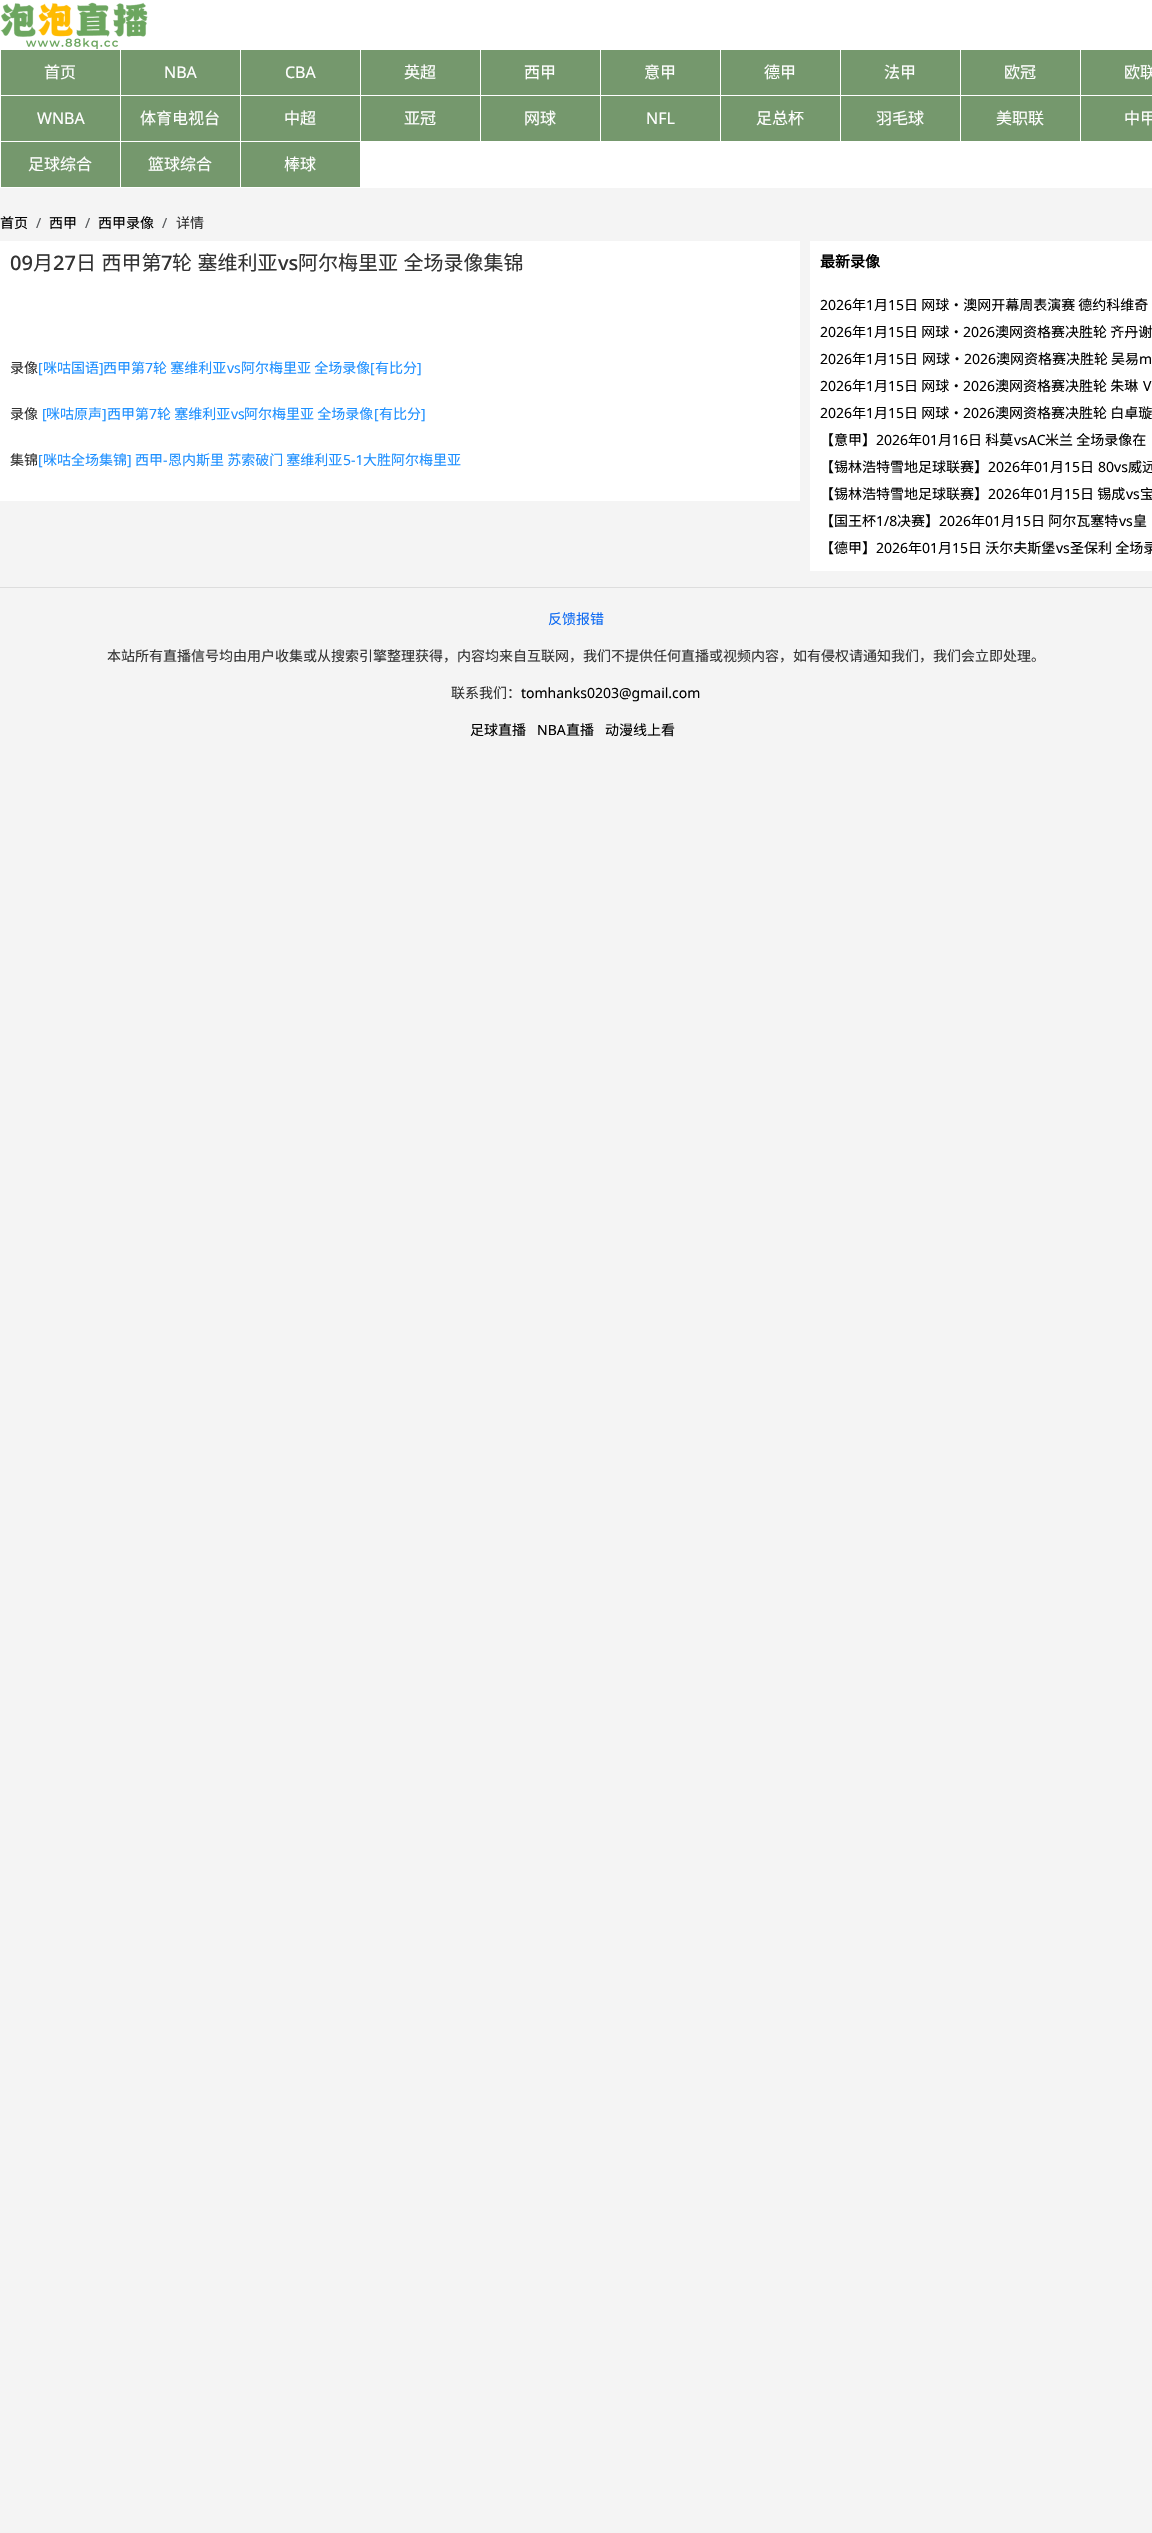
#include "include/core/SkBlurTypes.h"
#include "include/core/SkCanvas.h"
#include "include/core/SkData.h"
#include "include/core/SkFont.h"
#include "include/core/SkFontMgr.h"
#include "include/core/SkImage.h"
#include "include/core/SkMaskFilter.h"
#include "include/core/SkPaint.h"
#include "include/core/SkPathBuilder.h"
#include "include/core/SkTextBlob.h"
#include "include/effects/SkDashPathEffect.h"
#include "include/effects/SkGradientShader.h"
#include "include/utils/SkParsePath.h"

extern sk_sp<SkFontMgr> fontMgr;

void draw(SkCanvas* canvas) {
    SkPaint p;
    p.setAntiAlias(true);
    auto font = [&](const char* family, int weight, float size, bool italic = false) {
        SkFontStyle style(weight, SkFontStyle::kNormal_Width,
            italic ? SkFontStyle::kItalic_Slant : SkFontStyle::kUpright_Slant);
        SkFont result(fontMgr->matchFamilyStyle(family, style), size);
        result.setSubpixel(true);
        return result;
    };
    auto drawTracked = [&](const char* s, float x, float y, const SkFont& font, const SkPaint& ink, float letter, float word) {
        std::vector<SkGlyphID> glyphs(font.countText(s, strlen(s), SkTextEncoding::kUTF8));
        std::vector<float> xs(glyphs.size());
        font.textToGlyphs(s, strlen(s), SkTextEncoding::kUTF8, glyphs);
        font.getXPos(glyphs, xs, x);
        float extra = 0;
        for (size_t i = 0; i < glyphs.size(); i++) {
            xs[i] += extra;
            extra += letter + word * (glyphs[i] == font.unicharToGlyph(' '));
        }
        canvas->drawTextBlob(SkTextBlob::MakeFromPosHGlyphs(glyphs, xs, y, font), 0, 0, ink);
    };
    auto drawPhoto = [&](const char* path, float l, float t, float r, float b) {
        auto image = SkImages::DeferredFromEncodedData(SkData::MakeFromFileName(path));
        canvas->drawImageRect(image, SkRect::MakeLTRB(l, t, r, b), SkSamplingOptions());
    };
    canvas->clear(0xFFF4F4F4);
    p.setColor(0xFFFFFFFF);
    canvas->drawRect(SkRect::MakeLTRB(0, 0, 1152, 188), p);
    drawPhoto("media/1.png", 0, 2, 148, 49);
    p.setColor(0xFF75986D);
    canvas->drawRect(SkRect::MakeLTRB(1, 50, 120, 95), p);
    auto font1 = font("Noto Sans CJK SC", 400, 16);
    p.setColor(0xFFFFFFFF);
    canvas->drawString("首页", 44, 78, font1, p);
    p.setColor(0xFF75986D);
    canvas->drawRect(SkRect::MakeLTRB(121, 50, 240, 95), p);
    auto font2 = font("Noto Sans", 400, 16);
    p.setColor(0xFFFFFFFF);
    canvas->drawString("NBA", 164, 78, font2, p);
    p.setColor(0xFF75986D);
    canvas->drawRect(SkRect::MakeLTRB(241, 50, 360, 95), p);
    p.setColor(0xFFFFFFFF);
    canvas->drawString("CBA", 285, 78, font2, p);
    p.setColor(0xFF75986D);
    canvas->drawRect(SkRect::MakeLTRB(361, 50, 480, 95), p);
    p.setColor(0xFFFFFFFF);
    canvas->drawString("英超", 404, 78, font1, p);
    p.setColor(0xFF75986D);
    canvas->drawRect(SkRect::MakeLTRB(481, 50, 600, 95), p);
    p.setColor(0xFFFFFFFF);
    canvas->drawString("西甲", 524, 78, font1, p);
    p.setColor(0xFF75986D);
    canvas->drawRect(SkRect::MakeLTRB(601, 50, 720, 95), p);
    p.setColor(0xFFFFFFFF);
    canvas->drawString("意甲", 644, 78, font1, p);
    p.setColor(0xFF75986D);
    canvas->drawRect(SkRect::MakeLTRB(721, 50, 840, 95), p);
    p.setColor(0xFFFFFFFF);
    canvas->drawString("德甲", 764, 78, font1, p);
    p.setColor(0xFF75986D);
    canvas->drawRect(SkRect::MakeLTRB(841, 50, 960, 95), p);
    p.setColor(0xFFFFFFFF);
    canvas->drawString("法甲", 884, 78, font1, p);
    p.setColor(0xFF75986D);
    canvas->drawRect(SkRect::MakeLTRB(961, 50, 1080, 95), p);
    p.setColor(0xFFFFFFFF);
    canvas->drawString("欧冠", 1004, 78, font1, p);
    p.setColor(0xFF75986D);
    canvas->drawRect(SkRect::MakeLTRB(1081, 50, 1152, 95), p);
    p.setColor(0xFFFFFFFF);
    canvas->drawString("欧联", 1124, 78, font1, p);
    p.setColor(0xFF75986D);
    canvas->drawRect(SkRect::MakeLTRB(1, 96, 120, 141), p);
    p.setColor(0xFFFFFFFF);
    canvas->drawString("WNBA", 37, 124, font2, p);
    p.setColor(0xFF75986D);
    canvas->drawRect(SkRect::MakeLTRB(121, 96, 240, 141), p);
    p.setColor(0xFFFFFFFF);
    canvas->drawString("体育电视台", 140, 124, font1, p);
    p.setColor(0xFF75986D);
    canvas->drawRect(SkRect::MakeLTRB(241, 96, 360, 141), p);
    p.setColor(0xFFFFFFFF);
    canvas->drawString("中超", 284, 124, font1, p);
    p.setColor(0xFF75986D);
    canvas->drawRect(SkRect::MakeLTRB(361, 96, 480, 141), p);
    p.setColor(0xFFFFFFFF);
    canvas->drawString("亚冠", 404, 124, font1, p);
    p.setColor(0xFF75986D);
    canvas->drawRect(SkRect::MakeLTRB(481, 96, 600, 141), p);
    p.setColor(0xFFFFFFFF);
    canvas->drawString("网球", 524, 124, font1, p);
    p.setColor(0xFF75986D);
    canvas->drawRect(SkRect::MakeLTRB(601, 96, 720, 141), p);
    p.setColor(0xFFFFFFFF);
    canvas->drawString("NFL", 646, 124, font2, p);
    p.setColor(0xFF75986D);
    canvas->drawRect(SkRect::MakeLTRB(721, 96, 840, 141), p);
    p.setColor(0xFFFFFFFF);
    canvas->drawString("足总杯", 756, 124, font1, p);
    p.setColor(0xFF75986D);
    canvas->drawRect(SkRect::MakeLTRB(841, 96, 960, 141), p);
    p.setColor(0xFFFFFFFF);
    canvas->drawString("羽毛球", 876, 124, font1, p);
    p.setColor(0xFF75986D);
    canvas->drawRect(SkRect::MakeLTRB(961, 96, 1080, 141), p);
    p.setColor(0xFFFFFFFF);
    canvas->drawString("美职联", 996, 124, font1, p);
    p.setColor(0xFF75986D);
    canvas->drawRect(SkRect::MakeLTRB(1081, 96, 1152, 141), p);
    p.setColor(0xFFFFFFFF);
    canvas->drawString("中甲", 1124, 124, font1, p);
    p.setColor(0xFF75986D);
    canvas->drawRect(SkRect::MakeLTRB(1, 142, 120, 187), p);
    p.setColor(0xFFFFFFFF);
    canvas->drawString("足球综合", 28, 170, font1, p);
    p.setColor(0xFF75986D);
    canvas->drawRect(SkRect::MakeLTRB(121, 142, 240, 187), p);
    p.setColor(0xFFFFFFFF);
    canvas->drawString("篮球综合", 148, 170, font1, p);
    p.setColor(0xFF75986D);
    canvas->drawRect(SkRect::MakeLTRB(241, 142, 360, 187), p);
    p.setColor(0xFFFFFFFF);
    canvas->drawString("棒球", 284, 170, font1, p);
    auto font3 = font("Noto Sans CJK SC", 400, 14);
    p.setColor(0xFF000000);
    canvas->drawString("首页", 0, 228, font3, p);
    auto font4 = font("Noto Sans", 400, 14);
    p.setColor(0xFF56595C);
    canvas->drawString("/", 36, 228, font4, p);
    p.setColor(0xFF000000);
    canvas->drawString("西甲", 49, 228, font3, p);
    p.setColor(0xFF56595C);
    canvas->drawString("/", 85, 228, font4, p);
    p.setColor(0xFF000000);
    canvas->drawString("西甲录像", 98, 228, font3, p);
    p.setColor(0xFF56595C);
    canvas->drawString("/", 162, 228, font4, p);
    p.setColor(0xFF333333);
    canvas->drawString("详情", 176, 228, font3, p);
    p.setColor(0xFFFFFFFF);
    canvas->drawRect(SkRect::MakeLTRB(0, 241, 800, 501), p);
    auto font5 = font("Noto Sans", 500, 20);
    p.setColor(0xFF333333);
    canvas->drawString("09", 10, 270, font5, p);
    auto font6 = font("Noto Sans CJK SC", 400, 20);
    canvas->drawString("月", 33, 270, font6, p);
    canvas->drawString("27", 53, 270, font5, p);
    drawTracked("日 西甲第", 76, 270, font6, p, 0, 1);
    canvas->drawString("7", 161, 270, font5, p);
    drawTracked("轮 塞维利亚", 172, 270, font6, p, 0, 1);
    canvas->drawString("vs", 278, 270, font5, p);
    drawTracked("阿尔梅里亚 全场录像集锦", 298, 270, font6, p, 0, 1);
    canvas->drawString("录像", 10, 373, font3, p);
    p.setColor(0xFF1E90FF);
    canvas->drawString("[", 38, 373, font4, p);
    canvas->drawString("咪咕国语", 43, 373, font3, p);
    canvas->drawString("]", 99, 373, font4, p);
    canvas->drawString("西甲第", 103, 373, font3, p);
    canvas->drawString("7", 145, 373, font4, p);
    canvas->drawString("轮 塞维利亚", 153, 373, font3, p);
    canvas->drawString("vs", 227, 373, font4, p);
    canvas->drawString("阿尔梅里亚 全场录像", 241, 373, font3, p);
    canvas->drawString("[", 370, 373, font4, p);
    canvas->drawString("有比分", 375, 373, font3, p);
    canvas->drawString("]", 417, 373, font4, p);
    p.setColor(0xFF333333);
    canvas->drawString("录像", 10, 419, font3, p);
    p.setColor(0xFF1E90FF);
    canvas->drawString("[", 42, 419, font4, p);
    canvas->drawString("咪咕原声", 46, 419, font3, p);
    canvas->drawString("]", 102, 419, font4, p);
    canvas->drawString("西甲第", 107, 419, font3, p);
    canvas->drawString("7", 149, 419, font4, p);
    canvas->drawString("轮 塞维利亚", 157, 419, font3, p);
    canvas->drawString("vs", 231, 419, font4, p);
    canvas->drawString("阿尔梅里亚 全场录像", 244, 419, font3, p);
    canvas->drawString("[", 374, 419, font4, p);
    canvas->drawString("有比分", 379, 419, font3, p);
    canvas->drawString("]", 421, 419, font4, p);
    p.setColor(0xFF333333);
    canvas->drawString("集锦", 10, 465, font3, p);
    p.setColor(0xFF1E90FF);
    canvas->drawString("[", 38, 465, font4, p);
    canvas->drawString("咪咕全场集锦", 43, 465, font3, p);
    canvas->drawString("]", 127, 465, font4, p);
    canvas->drawString("西甲", 135, 465, font3, p);
    canvas->drawString("-", 163, 465, font4, p);
    canvas->drawString("恩内斯里 苏索破门 塞维利亚", 168, 465, font3, p);
    canvas->drawString("5-1", 343, 465, font4, p);
    canvas->drawString("大胜阿尔梅里亚", 363, 465, font3, p);
    p.setColor(0xFFFFFFFF);
    canvas->drawRect(SkRect::MakeLTRB(810, 241, 1152, 571), p);
    auto font7 = font("Noto Sans CJK SC", 700, 15);
    p.setColor(0xFF000000);
    canvas->drawString("最新录像", 820, 267, font7, p);
    canvas->drawString("2026", 820, 310, font4, p);
    canvas->drawString("年", 852, 310, font3, p);
    canvas->drawString("1", 866, 310, font4, p);
    canvas->drawString("月", 874, 310, font3, p);
    canvas->drawString("15", 888, 310, font4, p);
    canvas->drawString("日 网球・澳网开幕周表演赛 德约科维奇", 904, 310, font3, p);
    canvas->drawString("2026", 820, 337, font4, p);
    canvas->drawString("年", 852, 337, font3, p);
    canvas->drawString("1", 866, 337, font4, p);
    canvas->drawString("月", 874, 337, font3, p);
    canvas->drawString("15", 888, 337, font4, p);
    canvas->drawString("日 网球・", 904, 337, font3, p);
    canvas->drawString("2026", 963, 337, font4, p);
    canvas->drawString("澳网资格赛决胜轮 齐丹谢", 995, 337, font3, p);
    canvas->drawString("2026", 820, 364, font4, p);
    canvas->drawString("年", 852, 364, font3, p);
    canvas->drawString("1", 866, 364, font4, p);
    canvas->drawString("月", 874, 364, font3, p);
    canvas->drawString("15", 888, 364, font4, p);
    canvas->drawString("日", 904, 364, font3, p);
    canvas->drawString("网球・", 922, 364, font3, p);
    canvas->drawString("2026", 964, 364, font4, p);
    canvas->drawString("澳网资格赛决胜轮", 996, 364, font3, p);
    canvas->drawString("吴易", 1111, 364, font3, p);
    canvas->drawString("m", 1139, 364, font4, p);
    canvas->drawString("2026", 820, 391, font4, p);
    canvas->drawString("年", 852, 391, font3, p);
    canvas->drawString("1", 866, 391, font4, p);
    canvas->drawString("月", 874, 391, font3, p);
    canvas->drawString("15", 888, 391, font4, p);
    canvas->drawString("日 网球・", 904, 391, font3, p);
    canvas->drawString("2026", 963, 391, font4, p);
    canvas->drawString("澳网资格赛决胜轮 朱琳", 995, 391, font3, p);
    canvas->drawString("V", 1143, 391, font4, p);
    canvas->drawString("2026", 820, 418, font4, p);
    canvas->drawString("年", 852, 418, font3, p);
    canvas->drawString("1", 866, 418, font4, p);
    canvas->drawString("月", 874, 418, font3, p);
    canvas->drawString("15", 888, 418, font4, p);
    canvas->drawString("日 网球・", 904, 418, font3, p);
    canvas->drawString("2026", 963, 418, font4, p);
    canvas->drawString("澳网资格赛决胜轮 白卓璇", 995, 418, font3, p);
    canvas->drawString("【意甲】", 820, 445, font3, p);
    canvas->drawString("2026", 876, 445, font4, p);
    canvas->drawString("年", 908, 445, font3, p);
    canvas->drawString("01", 922, 445, font4, p);
    canvas->drawString("月", 938, 445, font3, p);
    canvas->drawString("16", 952, 445, font4, p);
    canvas->drawString("日 科莫", 968, 445, font3, p);
    canvas->drawString("vsAC", 1014, 445, font4, p);
    canvas->drawString("米兰 全场录像在", 1045, 445, font3, p);
    canvas->drawString("【锡林浩特雪地足球联赛】", 820, 472, font3, p);
    canvas->drawString("2026", 988, 472, font4, p);
    canvas->drawString("年", 1020, 472, font3, p);
    canvas->drawString("01", 1034, 472, font4, p);
    canvas->drawString("月", 1050, 472, font3, p);
    canvas->drawString("15", 1064, 472, font4, p);
    canvas->drawString("日", 1080, 472, font3, p);
    canvas->drawString("80vs", 1098, 472, font4, p);
    canvas->drawString("威远", 1128, 472, font3, p);
    canvas->drawString("【锡林浩特雪地足球联赛】", 820, 499, font3, p);
    canvas->drawString("2026", 988, 499, font4, p);
    canvas->drawString("年", 1020, 499, font3, p);
    canvas->drawString("01", 1034, 499, font4, p);
    canvas->drawString("月", 1050, 499, font3, p);
    canvas->drawString("15", 1064, 499, font4, p);
    canvas->drawString("日 锡成", 1080, 499, font3, p);
    canvas->drawString("vs", 1126, 499, font4, p);
    canvas->drawString("宝", 1140, 499, font3, p);
    canvas->drawString("【国王杯", 820, 526, font3, p);
    canvas->drawString("1/8", 876, 526, font4, p);
    canvas->drawString("决赛】", 897, 526, font3, p);
    canvas->drawString("2026", 939, 526, font4, p);
    canvas->drawString("年", 971, 526, font3, p);
    canvas->drawString("01", 985, 526, font4, p);
    canvas->drawString("月", 1001, 526, font3, p);
    canvas->drawString("15", 1015, 526, font4, p);
    canvas->drawString("日 阿尔瓦塞特", 1031, 526, font3, p);
    canvas->drawString("vs", 1119, 526, font4, p);
    canvas->drawString("皇", 1133, 526, font3, p);
    canvas->drawString("【德甲】", 820, 553, font3, p);
    canvas->drawString("2026", 876, 553, font4, p);
    canvas->drawString("年", 908, 553, font3, p);
    canvas->drawString("01", 922, 553, font4, p);
    canvas->drawString("月", 938, 553, font3, p);
    canvas->drawString("15", 952, 553, font4, p);
    canvas->drawString("日 沃尔夫斯堡", 968, 553, font3, p);
    canvas->drawString("vs", 1056, 553, font4, p);
    canvas->drawString("圣保利 全场录", 1070, 553, font3, p);
    p.setColor(0xFFDDDDDD);
    canvas->drawRect(SkRect::MakeLTRB(0, 587, 1152, 588), p);
    p.setColor(0xFF0C69F2);
    canvas->drawString("反馈报错", 548, 624, font3, p);
    p.setColor(0xFF333333);
    canvas->drawString("本站所有直播信号均由用户收集或从搜索引擎整理获得，内容均来自互联网，我们不提供任何直播或视频内容，如有侵权请通知我们，我们会立即处理。", 107, 661, font3, p);
    canvas->drawString("联系我们：", 451, 698, font3, p);
    p.setColor(0xFF000000);
    canvas->drawString("tomhanks0203@gmail.com", 521, 698, font4, p);
    canvas->drawString("足球直播", 470, 735, font3, p);
    canvas->drawString("NBA", 537, 735, font4, p);
    canvas->drawString("直播", 566, 735, font3, p);
    canvas->drawString("动漫线上看", 605, 735, font3, p);
}
